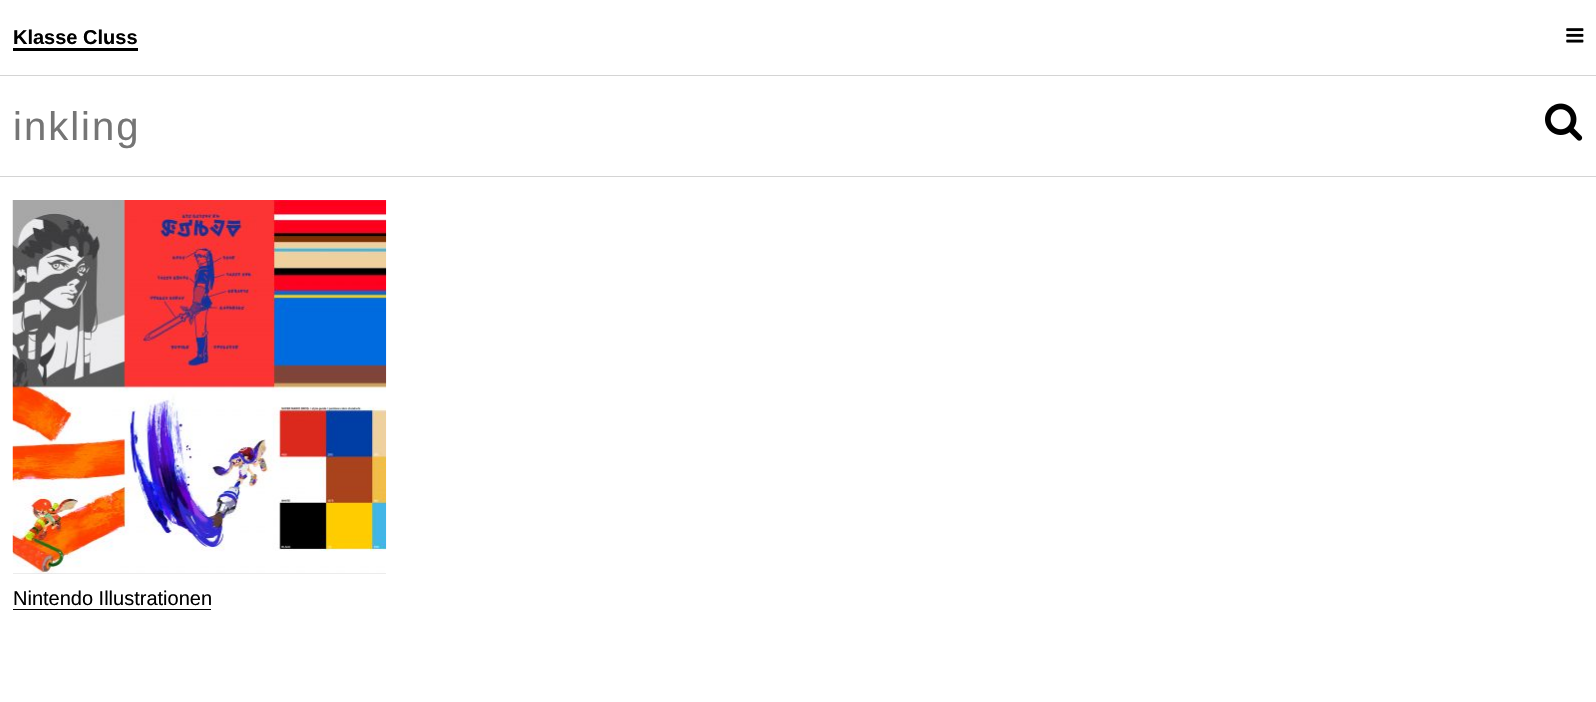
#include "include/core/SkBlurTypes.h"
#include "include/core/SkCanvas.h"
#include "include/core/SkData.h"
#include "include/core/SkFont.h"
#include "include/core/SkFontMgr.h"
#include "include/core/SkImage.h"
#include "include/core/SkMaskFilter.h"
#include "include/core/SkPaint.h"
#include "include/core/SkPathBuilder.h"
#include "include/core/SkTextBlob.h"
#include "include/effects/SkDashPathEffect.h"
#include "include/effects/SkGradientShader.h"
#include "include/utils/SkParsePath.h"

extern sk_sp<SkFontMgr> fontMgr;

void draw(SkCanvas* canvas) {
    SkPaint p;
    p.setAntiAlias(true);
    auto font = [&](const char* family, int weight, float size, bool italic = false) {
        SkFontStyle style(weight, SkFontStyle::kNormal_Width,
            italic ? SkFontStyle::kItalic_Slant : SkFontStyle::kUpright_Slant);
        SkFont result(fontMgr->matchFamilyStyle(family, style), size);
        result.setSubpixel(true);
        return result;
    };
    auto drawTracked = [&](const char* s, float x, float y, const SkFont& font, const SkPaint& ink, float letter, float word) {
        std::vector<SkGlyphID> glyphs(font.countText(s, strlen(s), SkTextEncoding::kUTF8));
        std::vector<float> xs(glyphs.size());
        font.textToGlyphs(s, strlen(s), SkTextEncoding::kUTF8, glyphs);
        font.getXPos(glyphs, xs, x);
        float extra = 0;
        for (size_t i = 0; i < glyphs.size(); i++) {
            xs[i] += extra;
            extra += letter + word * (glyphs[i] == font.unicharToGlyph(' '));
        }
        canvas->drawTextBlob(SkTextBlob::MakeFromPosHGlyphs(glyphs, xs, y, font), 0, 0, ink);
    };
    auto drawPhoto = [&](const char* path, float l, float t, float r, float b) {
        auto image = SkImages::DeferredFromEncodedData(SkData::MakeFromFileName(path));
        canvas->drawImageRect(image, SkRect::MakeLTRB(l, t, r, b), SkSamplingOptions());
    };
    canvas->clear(0xFFFFFFFF);
    p.setColor(0xFFD4D4D4);
    canvas->drawRect(SkRect::MakeLTRB(0, 75, 1596, 76), p);
    auto font1 = font("Liberation Sans", 700, 20);
    p.setColor(0xFF000000);
    canvas->drawString("Klasse Cluss", 13, 44, font1, p);
    canvas->drawRect(SkRect::MakeLTRB(13, 48, 138, 51), p);
    drawPhoto("media/1.png", 1566, 28, 1584, 43);
    p.setColor(0xFFD4D4D4);
    canvas->drawRect(SkRect::MakeLTRB(0, 176, 1596, 177), p);
    auto font2 = font("Liberation Sans", 400, 40);
    p.setColor(0xFF757575);
    drawTracked("inkling", 13, 140, font2, p, 2, 0);
    drawPhoto("media/2.png", 1545, 103, 1583, 141);
    p.setColor(0xFFD4D4D4);
    canvas->drawRect(SkRect::MakeLTRB(13, 573, 386, 574), p);
    drawPhoto("media/3.png", 12, 200, 387, 574);
    auto font3 = font("Liberation Sans", 400, 20);
    p.setColor(0xFF000000);
    canvas->drawString("Nintendo Illustrationen", 13, 605, font3, p);
    canvas->drawRect(SkRect::MakeLTRB(13, 609, 211, 610), p);
}
